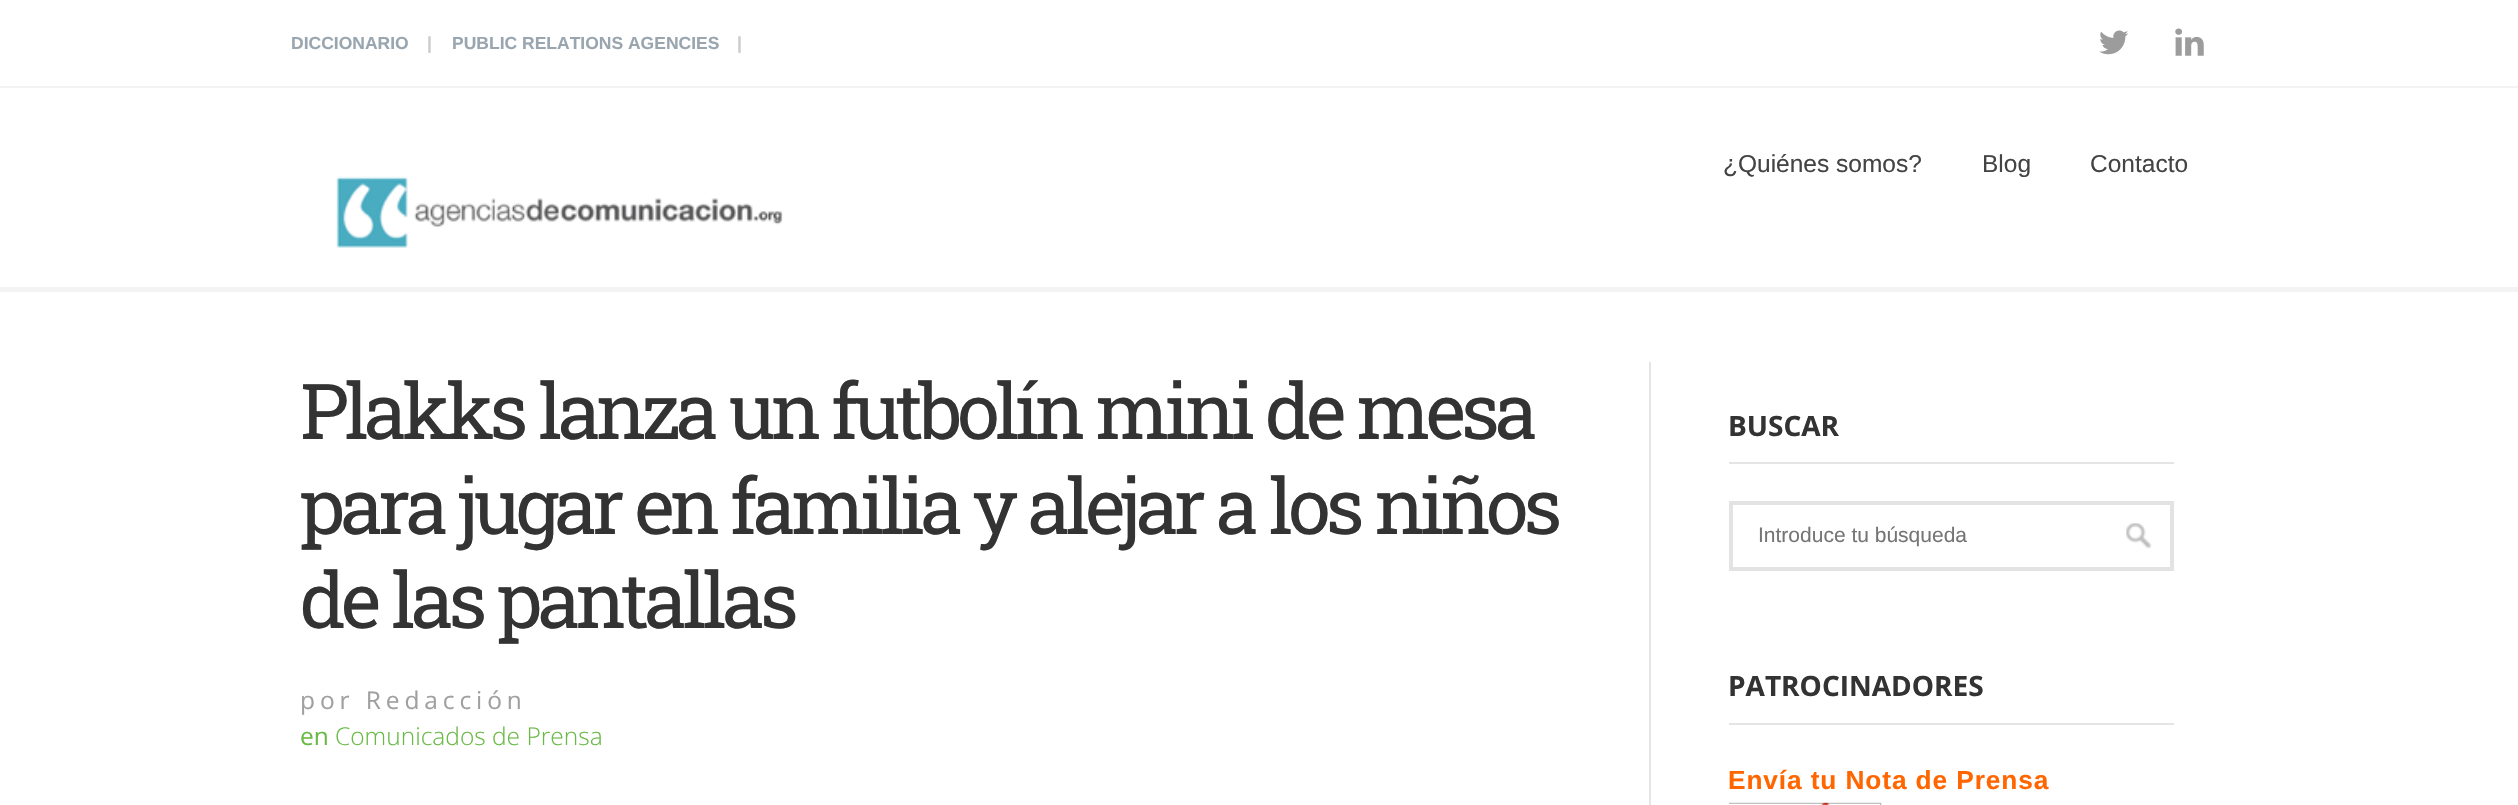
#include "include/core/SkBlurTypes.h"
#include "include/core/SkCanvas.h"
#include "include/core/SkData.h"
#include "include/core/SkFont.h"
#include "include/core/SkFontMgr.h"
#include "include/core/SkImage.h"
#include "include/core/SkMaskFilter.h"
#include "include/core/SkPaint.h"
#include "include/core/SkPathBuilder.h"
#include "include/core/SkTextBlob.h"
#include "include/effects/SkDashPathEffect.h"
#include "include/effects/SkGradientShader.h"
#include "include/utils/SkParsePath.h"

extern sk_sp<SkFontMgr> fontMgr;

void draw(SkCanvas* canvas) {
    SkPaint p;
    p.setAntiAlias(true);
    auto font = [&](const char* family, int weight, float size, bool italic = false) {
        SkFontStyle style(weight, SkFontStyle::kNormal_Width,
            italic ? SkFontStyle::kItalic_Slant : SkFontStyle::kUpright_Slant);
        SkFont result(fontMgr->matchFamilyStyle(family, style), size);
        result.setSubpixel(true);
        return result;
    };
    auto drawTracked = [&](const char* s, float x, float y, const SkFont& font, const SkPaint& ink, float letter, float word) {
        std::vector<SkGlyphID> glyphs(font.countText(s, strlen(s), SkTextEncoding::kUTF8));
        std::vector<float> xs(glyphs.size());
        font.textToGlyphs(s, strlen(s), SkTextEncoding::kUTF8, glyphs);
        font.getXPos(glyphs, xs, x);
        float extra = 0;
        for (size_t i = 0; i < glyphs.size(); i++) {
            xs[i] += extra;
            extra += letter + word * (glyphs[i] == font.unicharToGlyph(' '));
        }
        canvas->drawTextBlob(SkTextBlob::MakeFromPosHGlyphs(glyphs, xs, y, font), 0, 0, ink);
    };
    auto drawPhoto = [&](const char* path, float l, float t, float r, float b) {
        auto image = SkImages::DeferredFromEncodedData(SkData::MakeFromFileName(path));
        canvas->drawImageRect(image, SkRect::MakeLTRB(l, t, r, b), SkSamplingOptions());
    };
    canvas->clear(0xFFFFFFFF);
    p.setColor(0xFFF3F3F3);
    canvas->drawRect(SkRect::MakeLTRB(0, 86, 2518, 88), p);
    auto font1 = font("Liberation Sans", 700, 17.5f);
    p.setColor(0xFF9AA6AF);
    canvas->drawString("DICCIONARIO", 291, 49, font1, p);
    p.setColor(0xFFCCCCCC);
    canvas->drawString("|", 427, 49, font1, p);
    p.setColor(0xFF9AA6AF);
    canvas->drawString("PUBLIC RELATIONS AGENCIES", 452, 49, font1, p);
    p.setColor(0xFFCCCCCC);
    canvas->drawString("|", 737, 49, font1, p);
    drawPhoto("media/1.png", 2099, 30, 2129, 55);
    drawPhoto("media/2.png", 2175, 28, 2204, 56);
    p.setColor(0xFFF3F3F3);
    canvas->drawRect(SkRect::MakeLTRB(0, 287, 2518, 292), p);
    auto font2 = font("Liberation Sans", 400, 24.5f);
    p.setColor(0xFF444444);
    {
        const struct { const char* s; float x, y; } items[] = {
            {"¿Quiénes somos?", 1723, 172},
            {"Blog", 1982, 172},
            {"Contacto", 2090, 172},
        };
        for (auto [s, x, y] : items) {
            canvas->drawString(s, x, y, font2, p);
        }
    }
    drawPhoto("media/3.png", 336, 176, 783, 248);
    auto font3 = font("Roboto Slab", 400, 77);
    p.setColor(0xFF333333);
    {
        const struct { const char* s; float x, y; } items[] = {
            {"Plakks lanza un futbolín mini de mesa", 300, 439},
            {"para jugar en familia y alejar a los niños", 300, 534},
            {"de las pantallas", 300, 628},
        };
        for (auto [s, x, y] : items) {
            drawTracked(s, x, y, font3, p, -4.6f, 0);
        }
    }
    auto font4 = font("Open Sans", 400, 24.5f);
    p.setColor(0xFFA0A0A0);
    drawTracked("por Redacción", 300, 709, font4, p, 4.9f, 0);
    p.setColor(0xFF69BA45);
    canvas->drawString("en", 300, 745, font4, p);
    auto font5 = font("Open Sans", 300, 24.5f);
    canvas->drawString("Comunicados de Prensa", 335, 745, font5, p);
    p.setColor(0xFFE5E5E5);
    canvas->drawRect(SkRect::MakeLTRB(1649, 362, 1651, 805), p);
    canvas->drawRect(SkRect::MakeLTRB(1729, 462, 2174, 464), p);
    auto font6 = font("Open Sans", 700, 28);
    p.setColor(0xFF333333);
    canvas->drawString("BUSCAR", 1728, 436, font6, p);
    drawPhoto("media/4.png", 2126, 523, 2152, 549);
    p.setStyle(SkPaint::kStroke_Style);
    p.setStrokeWidth(4);
    p.setColor(0xFFE3E3E3);
    canvas->drawRect(SkRect::MakeLTRB(1731, 503, 2172, 569), p);
    auto font7 = font("Liberation Sans", 400, 21);
    p.setStyle(SkPaint::kFill_Style);
    p.setColor(0xFF757575);
    canvas->drawString("Introduce tu búsqueda", 1758, 542, font7, p);
    p.setColor(0xFFE5E5E5);
    canvas->drawRect(SkRect::MakeLTRB(1729, 723, 2174, 725), p);
    p.setColor(0xFF333333);
    canvas->drawString("PATROCINADORES", 1728, 696, font6, p);
    auto font8 = font("Liberation Sans", 700, 26.25f);
    p.setColor(0xFFFF6600);
    drawTracked("Envía tu Nota de Prensa", 1728, 789, font8, p, 0.9f, 0);
    drawPhoto("media/5.png", 1729, 802, 1882, 805);
}
